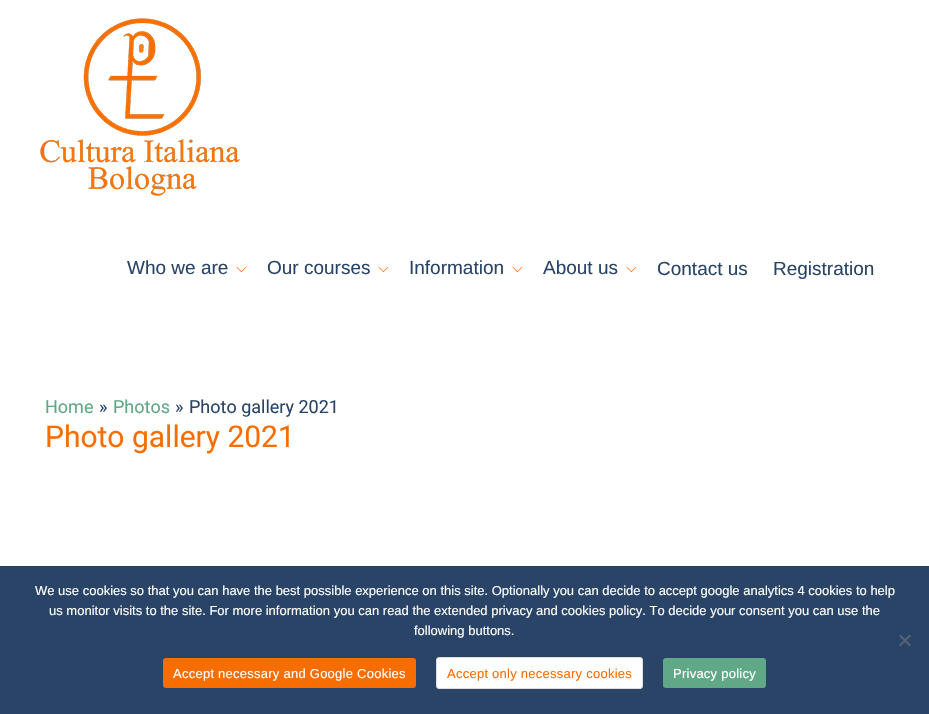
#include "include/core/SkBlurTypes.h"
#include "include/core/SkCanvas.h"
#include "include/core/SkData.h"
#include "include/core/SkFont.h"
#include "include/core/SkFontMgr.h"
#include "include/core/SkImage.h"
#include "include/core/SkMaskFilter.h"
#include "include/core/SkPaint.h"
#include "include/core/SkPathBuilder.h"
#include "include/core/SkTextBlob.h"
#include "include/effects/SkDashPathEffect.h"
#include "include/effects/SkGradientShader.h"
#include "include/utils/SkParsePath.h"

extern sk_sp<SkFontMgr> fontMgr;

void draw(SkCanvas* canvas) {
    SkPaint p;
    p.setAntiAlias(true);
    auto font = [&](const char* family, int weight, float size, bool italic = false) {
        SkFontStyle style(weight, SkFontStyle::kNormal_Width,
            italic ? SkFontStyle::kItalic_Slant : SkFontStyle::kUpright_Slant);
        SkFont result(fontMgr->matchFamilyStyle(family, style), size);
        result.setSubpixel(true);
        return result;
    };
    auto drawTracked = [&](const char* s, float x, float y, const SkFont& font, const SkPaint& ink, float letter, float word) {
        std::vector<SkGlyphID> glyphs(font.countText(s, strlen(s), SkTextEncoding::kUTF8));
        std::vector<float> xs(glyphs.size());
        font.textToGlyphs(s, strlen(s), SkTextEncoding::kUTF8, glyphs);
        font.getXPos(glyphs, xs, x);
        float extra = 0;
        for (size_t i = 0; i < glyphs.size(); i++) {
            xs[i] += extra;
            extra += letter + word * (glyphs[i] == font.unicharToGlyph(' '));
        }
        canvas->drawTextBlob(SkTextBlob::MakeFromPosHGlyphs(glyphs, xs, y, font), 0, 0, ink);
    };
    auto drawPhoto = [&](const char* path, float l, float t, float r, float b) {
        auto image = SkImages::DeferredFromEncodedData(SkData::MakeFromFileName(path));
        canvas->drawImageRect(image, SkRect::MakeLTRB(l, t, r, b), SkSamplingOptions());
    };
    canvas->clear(0xFFFFFFFF);
    drawPhoto("media/1.png", 40, 18, 240, 196);
    auto font1 = font("Liberation Sans", 400, 19);
    p.setColor(0xFF294466);
    canvas->drawString("Who we are", 127, 274, font1, p);
    drawPhoto("media/2.png", 236, 266, 247, 273);
    canvas->drawString("Our courses", 267, 274, font1, p);
    drawPhoto("media/2.png", 378, 266, 389, 273);
    canvas->drawString("Information", 409, 274, font1, p);
    drawPhoto("media/2.png", 512, 266, 523, 273);
    canvas->drawString("About us", 543, 274, font1, p);
    drawPhoto("media/2.png", 626, 266, 637, 273);
    canvas->drawString("Contact us", 657, 275, font1, p);
    canvas->drawString("Registration", 773, 275, font1, p);
    auto font2 = font("Roboto", 400, 18);
    p.setColor(0xFF61A986);
    canvas->drawString("Home", 45, 413, font2, p);
    p.setColor(0xFF294466);
    canvas->drawString("»", 99, 413, font2, p);
    p.setColor(0xFF61A986);
    canvas->drawString("Photos", 113, 413, font2, p);
    p.setColor(0xFF294466);
    canvas->drawString("»", 175, 413, font2, p);
    canvas->drawString("Photo gallery 2021", 189, 413, font2, p);
    auto font3 = font("Roboto", 400, 30);
    p.setColor(0xFFF76D00);
    canvas->drawString("Photo gallery 2021", 45, 447, font3, p);
    p.setColor(0xFF294466);
    canvas->drawRect(SkRect::MakeLTRB(0, 566, 929, 714), p);
    auto font4 = font("Liberation Sans", 400, 13);
    p.setColor(0xFFFFFFFF);
    {
        const struct { const char* s; float x, y; } items[] = {
            {"We use cookies so that you can have the best possible experience on this site. Optionally you can decide to accept google analytics 4 cookies to help", 35, 595},
            {"us monitor visits to the site. For more information you can read the extended privacy and cookies policy. To decide your consent you can use the", 49, 615},
            {"following buttons.", 414, 635},
        };
        for (auto [s, x, y] : items) {
            canvas->drawString(s, x, y, font4, p);
        }
    }
    p.setColor(0xFF556273);
    canvas->drawPath(SkPathBuilder().moveTo(909.5f, 634.5f).lineTo(911, 636).lineTo(900.5f, 646.5f).lineTo(899, 645).close().detach(), p);
    canvas->drawPath(SkPathBuilder().moveTo(899, 636).lineTo(900.5f, 634.5f).lineTo(911, 645).lineTo(909.5f, 646.5f).close().detach(), p);
    p.setColor(0xFFF76D00);
    canvas->drawRoundRect(SkRect::MakeLTRB(163, 658, 416, 688), 3, 3, p);
    p.setColor(0xFFFFFFFF);
    drawTracked("Accept necessary and Google Cookies", 173, 678, font4, p, 0.25f, 0);
    canvas->drawRoundRect(SkRect::MakeLTRB(436.5f, 657.5f, 642.5f, 688.5f), 2.5f, 2.5f, p);
    p.setStyle(SkPaint::kStroke_Style);
    p.setStrokeWidth(1);
    p.setColor(0xFFDEDEDE);
    canvas->drawRoundRect(SkRect::MakeLTRB(436.5f, 657.5f, 642.5f, 688.5f), 2.5f, 2.5f, p);
    p.setStyle(SkPaint::kFill_Style);
    p.setColor(0xFFF76D00);
    drawTracked("Accept only necessary cookies", 447, 678, font4, p, 0.25f, 0);
    p.setColor(0xFF61A986);
    canvas->drawRoundRect(SkRect::MakeLTRB(663, 658, 766, 688), 3, 3, p);
    p.setColor(0xFFFFFFFF);
    drawTracked("Privacy policy", 673, 678, font4, p, 0.25f, 0);
}
